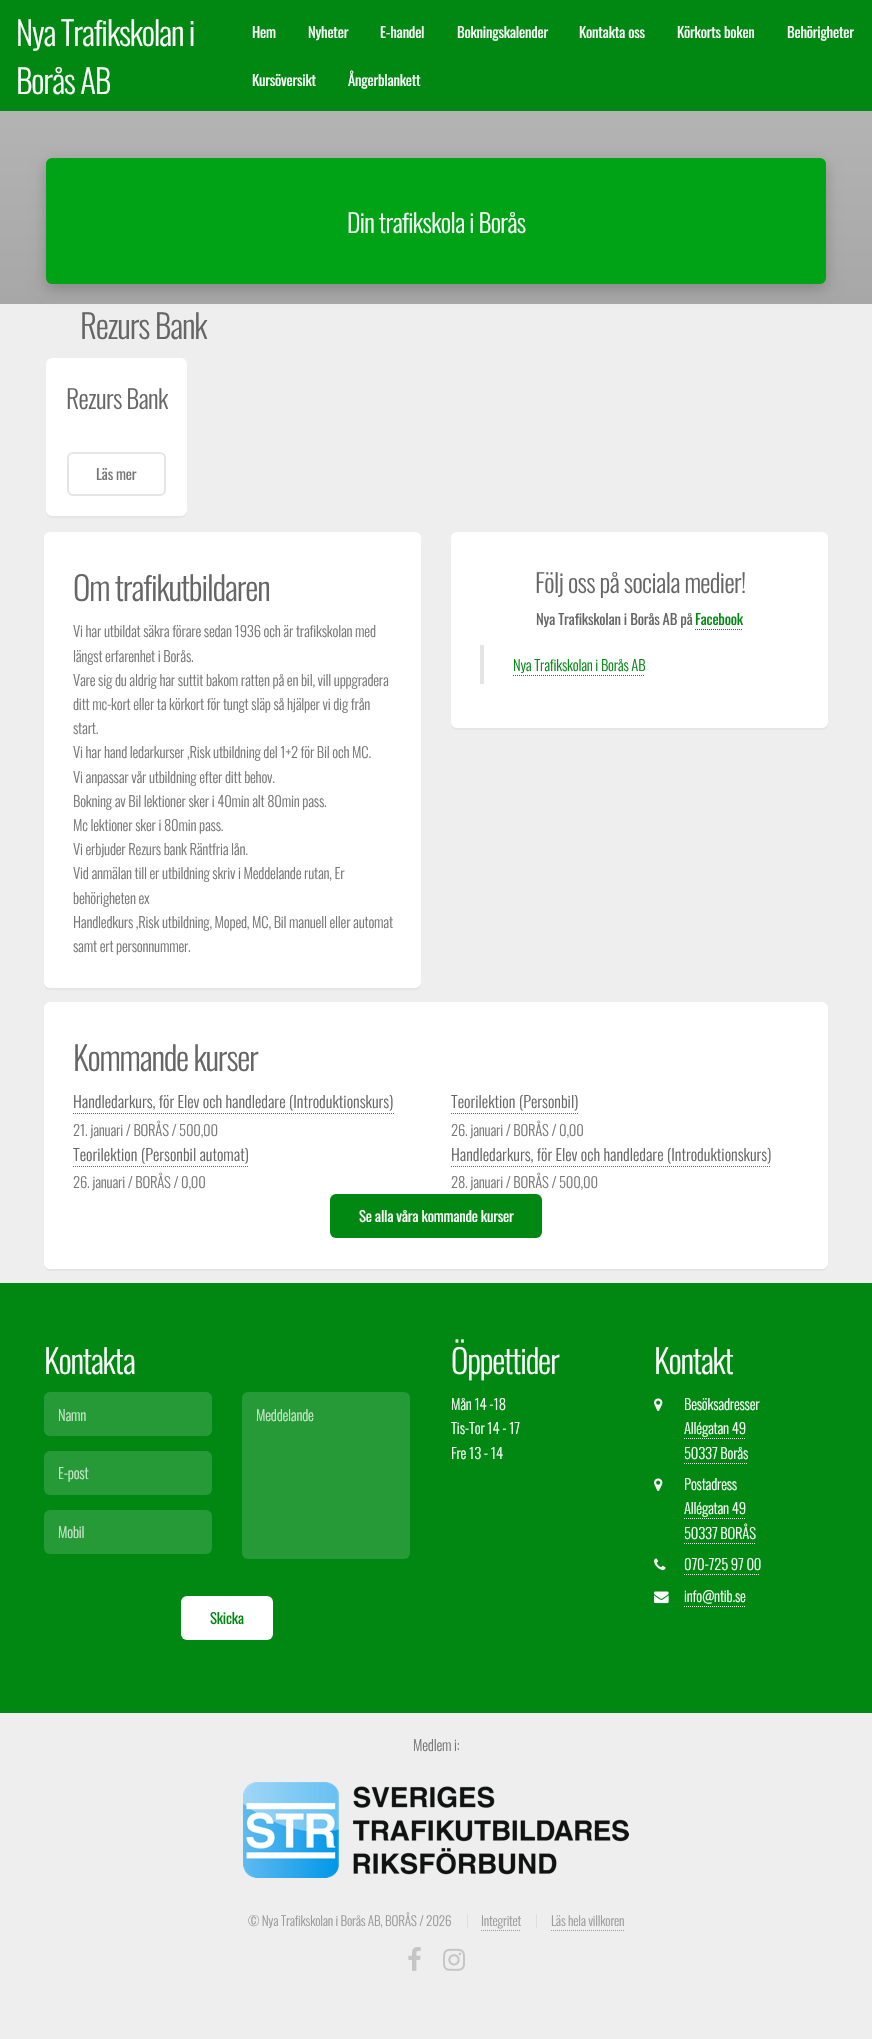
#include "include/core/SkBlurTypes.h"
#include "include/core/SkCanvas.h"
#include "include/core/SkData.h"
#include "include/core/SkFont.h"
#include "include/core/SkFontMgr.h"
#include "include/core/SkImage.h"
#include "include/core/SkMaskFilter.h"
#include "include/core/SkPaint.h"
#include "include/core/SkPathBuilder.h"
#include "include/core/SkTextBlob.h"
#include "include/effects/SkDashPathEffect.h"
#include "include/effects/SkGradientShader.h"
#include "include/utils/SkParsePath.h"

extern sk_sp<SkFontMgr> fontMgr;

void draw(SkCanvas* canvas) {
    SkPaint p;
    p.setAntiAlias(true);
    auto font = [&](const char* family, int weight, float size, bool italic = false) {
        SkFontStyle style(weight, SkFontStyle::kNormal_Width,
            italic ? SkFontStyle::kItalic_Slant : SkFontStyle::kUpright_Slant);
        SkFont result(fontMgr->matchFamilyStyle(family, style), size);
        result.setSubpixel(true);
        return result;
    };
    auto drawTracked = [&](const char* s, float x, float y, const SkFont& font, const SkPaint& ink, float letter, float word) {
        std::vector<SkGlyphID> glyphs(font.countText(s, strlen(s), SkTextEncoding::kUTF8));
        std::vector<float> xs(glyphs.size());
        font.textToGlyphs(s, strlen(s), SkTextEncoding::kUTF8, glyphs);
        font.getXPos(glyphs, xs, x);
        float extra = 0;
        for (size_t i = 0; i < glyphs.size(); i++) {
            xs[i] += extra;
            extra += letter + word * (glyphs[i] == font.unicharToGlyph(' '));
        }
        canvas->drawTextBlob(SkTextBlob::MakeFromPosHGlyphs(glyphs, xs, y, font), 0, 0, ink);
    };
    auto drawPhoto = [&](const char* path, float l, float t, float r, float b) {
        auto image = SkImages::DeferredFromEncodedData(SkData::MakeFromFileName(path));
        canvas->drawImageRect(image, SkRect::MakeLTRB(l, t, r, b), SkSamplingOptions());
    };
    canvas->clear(0xFFEEEEEE);
    p.setColor(0xFF008812);
    canvas->drawRect(SkRect::MakeLTRB(0, 0, 872, 111), p);
    auto font1 = font("Oswald", 300, 33);
    p.setColor(0xFFFFFFFF);
    drawTracked("Nya Trafikskolan i", 16, 46, font1, p, -1.2f, 0);
    drawTracked("Borås AB", 16, 94, font1, p, -1.2f, 0);
    auto font2 = font("Oswald", 400, 14.7f);
    {
        const struct { const char* s; float x, y; } items[] = {
            {"Hem", 252, 38},
            {"Nyheter", 308, 38},
            {"E-handel", 380, 38},
            {"Bokningskalender", 457, 38},
            {"Kontakta oss", 579, 38},
            {"Körkorts boken", 677, 38},
            {"Behörigheter", 787, 38},
            {"Kursöversikt", 252, 86},
            {"Ångerblankett", 348, 86},
        };
        for (auto [s, x, y] : items) {
            drawTracked(s, x, y, font2, p, -0.22f, 0);
        }
    }
    {
        const SkColor colors[] = {0xFFD7D7D7, 0xFFA7A7A7};
        const float stops[] = {0, 1};
        const SkPoint ends[] = {{436, -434}, {436, 304}};
        p.setShader(SkGradientShader::MakeLinear(ends, colors, stops, 2, SkTileMode::kClamp));
        p.setAlpha(255);
    }
    canvas->drawRect(SkRect::MakeLTRB(0, 111, 872, 304), p);
    p.setShader(nullptr);
    p.setColor(0x33000000);
    p.setMaskFilter(SkMaskFilter::MakeBlur(kNormal_SkBlurStyle, 7.5f));
    canvas->drawRoundRect(SkRect::MakeLTRB(46, 163, 826, 289), 6, 6, p);
    p.setMaskFilter(nullptr);
    p.setColor(0xFF00A316);
    canvas->drawRoundRect(SkRect::MakeLTRB(46, 158, 826, 284), 6, 6, p);
    auto font3 = font("Oswald", 300, 25.75f);
    p.setColor(0xFFFFFFFF);
    drawTracked("Din trafikskola i Borås", 347, 233, font3, p, -0.65f, 0);
    p.setColor(0xFF666666);
    drawTracked("Rezurs Bank", 80, 339, font1, p, -1.2f, 0);
    p.setColor(0xFFE5E5E5);
    canvas->drawPath(SkPathBuilder().moveTo(46, 510).lineTo(46, 512).cubicTo(46, 515, 49, 518, 52, 518).lineTo(181, 518).cubicTo(184, 518, 187, 515, 187, 512).lineTo(187, 510).cubicTo(187, 513, 184, 516, 181, 516).lineTo(52, 516).cubicTo(49, 516, 46, 513, 46, 510).close().detach(), p);
    p.setColor(0xFFFFFFFF);
    canvas->drawRoundRect(SkRect::MakeLTRB(46, 358, 187, 516), 6, 6, p);
    p.setColor(0xFF666666);
    drawTracked("Rezurs Bank", 66, 409, font3, p, -0.65f, 0);
    p.setStyle(SkPaint::kStroke_Style);
    p.setStrokeWidth(2);
    p.setColor(0xFFE5E5E5);
    canvas->drawRoundRect(SkRect::MakeLTRB(68, 453, 165, 495), 5, 5, p);
    p.setStyle(SkPaint::kFill_Style);
    p.setColor(0xFF777777);
    drawTracked("Läs mer", 96, 480, font2, p, -0.22f, 0);
    p.setColor(0xFFE5E5E5);
    canvas->drawPath(SkPathBuilder().moveTo(44, 982).cubicTo(44, 986, 45, 990, 50, 990).lineTo(415, 990).cubicTo(420, 990, 421, 986, 421, 982).cubicTo(421, 985, 418, 988, 415, 988).lineTo(50, 988).cubicTo(47, 988, 44, 985, 44, 982).close().detach(), p);
    p.setColor(0xFFFFFFFF);
    canvas->drawRoundRect(SkRect::MakeLTRB(44, 532, 421, 988), 6, 6, p);
    p.setColor(0xFF666666);
    drawTracked("Om trafikutbildaren", 73, 601, font1, p, -1.2f, 0);
    auto font4 = font("Oswald", 300, 14.7f);
    p.setColor(0xFF777777);
    {
        const struct { const char* s; float x, y; } items[] = {
            {"Vi har utbildat säkra förare sedan 1936 och är trafikskolan med", 73, 637},
            {"längst erfarenhet i Borås.", 73, 662},
            {"Vare sig du aldrig har suttit bakom ratten på en bil, vill uppgradera", 73, 686},
            {"ditt mc-kort eller ta körkort för tungt släp så hjälper vi dig från", 73, 710},
            {"start.", 73, 734},
            {"Vi har hand ledarkurser ,Risk utbildning del 1+2 för Bil och MC.", 73, 758},
            {"Vi anpassar vår utbildning efter ditt behov.", 73, 783},
            {"Bokning av Bil lektioner sker i 40min alt 80min pass.", 73, 807},
            {"Mc lektioner sker i 80min pass.", 73, 831},
            {"Vi erbjuder Rezurs bank Räntfria lån.", 73, 855},
            {"Vid anmälan till er utbildning skriv i Meddelande rutan, Er", 73, 879},
            {"behörigheten ex", 73, 904},
            {"Handledkurs ,Risk utbildning, Moped, MC, Bil manuell eller automat", 73, 928},
            {"samt ert personnummer.", 73, 952},
        };
        for (auto [s, x, y] : items) {
            drawTracked(s, x, y, font4, p, -0.22f, 0);
        }
    }
    p.setColor(0xFFE5E5E5);
    canvas->drawPath(SkPathBuilder().moveTo(451, 722).cubicTo(451, 726, 452, 730, 457, 730).lineTo(822, 730).cubicTo(827, 730, 828, 726, 828, 722).cubicTo(828, 725, 825, 728, 822, 728).lineTo(457, 728).cubicTo(454, 728, 451, 725, 451, 722).close().detach(), p);
    p.setColor(0xFFFFFFFF);
    canvas->drawRoundRect(SkRect::MakeLTRB(451, 532, 828, 728), 6, 6, p);
    p.setColor(0xFF666666);
    drawTracked("Följ oss på sociala medier!", 535, 593, font3, p, -0.65f, 0);
    drawTracked("Nya Trafikskolan i Borås AB på", 536, 625, font2, p, -0.22f, 0);
    p.setColor(0xFF008812);
    drawTracked("Facebook", 695, 625, font2, p, -0.22f, 0);
    p.setStyle(SkPaint::kStroke_Style);
    p.setStrokeWidth(1);
    p.setPathEffect(SkDashPathEffect::Make({{1, 1}}, 0));
    canvas->drawPath(SkPathBuilder().moveTo(695, 629.5f).lineTo(743, 629.5f).detach(), p);
    p.setPathEffect(nullptr);
    p.setStyle(SkPaint::kFill_Style);
    p.setColor(0xFFE5E5E5);
    canvas->drawRect(SkRect::MakeLTRB(480, 645, 484, 684), p);
    p.setColor(0xFF008812);
    drawTracked("Nya Trafikskolan i Borås AB", 513, 671, font4, p, -0.22f, 0);
    p.setStyle(SkPaint::kStroke_Style);
    p.setPathEffect(SkDashPathEffect::Make({{1, 1}}, 0));
    canvas->drawPath(SkPathBuilder().moveTo(513, 675.5f).lineTo(645, 675.5f).detach(), p);
    p.setPathEffect(nullptr);
    p.setStyle(SkPaint::kFill_Style);
    p.setColor(0xFFE5E5E5);
    canvas->drawPath(SkPathBuilder().moveTo(44, 1263).lineTo(44, 1265).cubicTo(44, 1268, 47, 1271, 50, 1271).lineTo(822, 1271).cubicTo(825, 1271, 828, 1268, 828, 1265).lineTo(828, 1263).cubicTo(828, 1266, 825, 1269, 822, 1269).lineTo(50, 1269).cubicTo(47, 1269, 44, 1266, 44, 1263).close().detach(), p);
    p.setColor(0xFFFFFFFF);
    canvas->drawRoundRect(SkRect::MakeLTRB(44, 1002, 828, 1269), 6, 6, p);
    p.setColor(0xFF666666);
    drawTracked("Kommande kurser", 73, 1071, font1, p, -1.2f, 0);
    auto font5 = font("Oswald", 300, 16.1f);
    canvas->drawString("Handledarkurs, för Elev och handledare (Introduktionskurs)", 73, 1108, font5, p);
    p.setStyle(SkPaint::kStroke_Style);
    p.setPathEffect(SkDashPathEffect::Make({{1, 1}}, 0));
    canvas->drawPath(SkPathBuilder().moveTo(73, 1113.5f).lineTo(394, 1113.5f).detach(), p);
    p.setPathEffect(nullptr);
    p.setStyle(SkPaint::kFill_Style);
    p.setColor(0xFF777777);
    drawTracked("21. januari / BORÅS / 500,00", 73, 1136, font4, p, -0.22f, 0);
    p.setColor(0xFF666666);
    canvas->drawString("Teorilektion (Personbil)", 451, 1108, font5, p);
    p.setStyle(SkPaint::kStroke_Style);
    p.setPathEffect(SkDashPathEffect::Make({{1, 1}}, 0));
    canvas->drawPath(SkPathBuilder().moveTo(451, 1113.5f).lineTo(578, 1113.5f).detach(), p);
    p.setPathEffect(nullptr);
    p.setStyle(SkPaint::kFill_Style);
    p.setColor(0xFF777777);
    drawTracked("26. januari / BORÅS / 0,00", 451, 1136, font4, p, -0.22f, 0);
    p.setColor(0xFF666666);
    canvas->drawString("Teorilektion (Personbil automat)", 73, 1161, font5, p);
    p.setStyle(SkPaint::kStroke_Style);
    p.setPathEffect(SkDashPathEffect::Make({{1, 1}}, 0));
    canvas->drawPath(SkPathBuilder().moveTo(73, 1166.5f).lineTo(249, 1166.5f).detach(), p);
    p.setPathEffect(nullptr);
    p.setStyle(SkPaint::kFill_Style);
    p.setColor(0xFF777777);
    drawTracked("26. januari / BORÅS / 0,00", 73, 1188, font4, p, -0.22f, 0);
    p.setColor(0xFF666666);
    canvas->drawString("Handledarkurs, för Elev och handledare (Introduktionskurs)", 451, 1161, font5, p);
    p.setStyle(SkPaint::kStroke_Style);
    p.setPathEffect(SkDashPathEffect::Make({{1, 1}}, 0));
    canvas->drawPath(SkPathBuilder().moveTo(451, 1166.5f).lineTo(771, 1166.5f).detach(), p);
    p.setPathEffect(nullptr);
    p.setStyle(SkPaint::kFill_Style);
    p.setColor(0xFF777777);
    drawTracked("28. januari / BORÅS / 500,00", 451, 1188, font4, p, -0.22f, 0);
    p.setColor(0xFF008812);
    canvas->drawRoundRect(SkRect::MakeLTRB(330, 1194, 542, 1238), 6, 6, p);
    p.setColor(0xFFFFFFFF);
    drawTracked("Se alla våra kommande kurser", 359, 1222, font2, p, -0.22f, 0);
    p.setColor(0xFF008812);
    canvas->drawRect(SkRect::MakeLTRB(0, 1283, 872, 1713), p);
    p.setColor(0xFFFFFFFF);
    drawTracked("Kontakta", 44, 1374, font1, p, -1.2f, 0);
    p.setColor(0xFF269A36);
    canvas->drawRoundRect(SkRect::MakeLTRB(44, 1392, 212, 1436), 6, 6, p);
    p.setColor(0xFFC9E6CD);
    drawTracked("Namn", 58, 1421, font4, p, -0.22f, 0);
    p.setColor(0xFF269A36);
    canvas->drawRoundRect(SkRect::MakeLTRB(44, 1451, 212, 1495), 6, 6, p);
    p.setColor(0xFFC9E6CD);
    drawTracked("E-post", 58, 1479, font4, p, -0.22f, 0);
    p.setColor(0xFF269A36);
    canvas->drawRoundRect(SkRect::MakeLTRB(44, 1510, 212, 1554), 6, 6, p);
    p.setColor(0xFFC9E6CD);
    drawTracked("Mobil", 58, 1538, font4, p, -0.22f, 0);
    p.setColor(0xFF269A36);
    canvas->drawRoundRect(SkRect::MakeLTRB(242, 1392, 410, 1559), 6, 6, p);
    p.setColor(0xFFC9E6CD);
    drawTracked("Meddelande", 256, 1421, font4, p, -0.22f, 0);
    p.setColor(0xFFFFFFFF);
    canvas->drawRoundRect(SkRect::MakeLTRB(181, 1596, 273, 1640), 6, 6, p);
    p.setColor(0xFF008812);
    drawTracked("Skicka", 210, 1624, font2, p, -0.22f, 0);
    p.setColor(0xFFFFFFFF);
    drawTracked("Öppettider", 451, 1374, font1, p, -1.2f, 0);
    {
        const struct { const char* s; float x, y; } items[] = {
            {"Mån 14 -18", 451, 1410},
            {"Tis-Tor 14 - 17", 451, 1434},
            {"Fre 13 - 14", 451, 1459},
        };
        for (auto [s, x, y] : items) {
            drawTracked(s, x, y, font4, p, -0.22f, 0);
        }
    }
    drawTracked("Kontakt", 654, 1374, font1, p, -1.2f, 0);
    drawPhoto("media/1.png", 654, 1398, 663, 1411);
    drawTracked("Besöksadresser", 684, 1410, font4, p, -0.22f, 0);
    drawTracked("Allégatan 49", 684, 1434, font4, p, -0.22f, 0);
    p.setStyle(SkPaint::kStroke_Style);
    p.setPathEffect(SkDashPathEffect::Make({{1, 1}}, 0));
    canvas->drawPath(SkPathBuilder().moveTo(684, 1438.5f).lineTo(745, 1438.5f).moveTo(684, 1463.5f).lineTo(747, 1463.5f).detach(), p);
    p.setPathEffect(nullptr);
    p.setStyle(SkPaint::kFill_Style);
    drawTracked("50337 Borås", 684, 1459, font4, p, -0.22f, 0);
    drawPhoto("media/1.png", 654, 1478, 663, 1491);
    drawTracked("Postadress", 684, 1490, font4, p, -0.22f, 0);
    drawTracked("Allégatan 49", 684, 1514, font4, p, -0.22f, 0);
    p.setStyle(SkPaint::kStroke_Style);
    p.setPathEffect(SkDashPathEffect::Make({{1, 1}}, 0));
    canvas->drawPath(SkPathBuilder().moveTo(684, 1518.5f).lineTo(745, 1518.5f).detach(), p);
    p.setPathEffect(nullptr);
    p.setStyle(SkPaint::kFill_Style);
    drawTracked("50337 BORÅS", 684, 1539, font4, p, -0.22f, 0);
    p.setStyle(SkPaint::kStroke_Style);
    p.setPathEffect(SkDashPathEffect::Make({{1, 1}}, 0));
    canvas->drawPath(SkPathBuilder().moveTo(684, 1543.5f).lineTo(755, 1543.5f).detach(), p);
    p.setPathEffect(nullptr);
    drawPhoto("media/2.png", 654, 1558, 666, 1570);
    p.setStyle(SkPaint::kFill_Style);
    drawTracked("070-725 97 00", 684, 1570, font4, p, -0.22f, 0);
    p.setStyle(SkPaint::kStroke_Style);
    p.setPathEffect(SkDashPathEffect::Make({{1, 1}}, 0));
    canvas->drawPath(SkPathBuilder().moveTo(684, 1574.5f).lineTo(760, 1574.5f).detach(), p);
    p.setPathEffect(nullptr);
    drawPhoto("media/3.png", 654, 1591, 669, 1604);
    p.setStyle(SkPaint::kFill_Style);
    drawTracked("info@ntib.se", 684, 1602, font4, p, -0.22f, 0);
    p.setStyle(SkPaint::kStroke_Style);
    p.setPathEffect(SkDashPathEffect::Make({{1, 1}}, 0));
    canvas->drawPath(SkPathBuilder().moveTo(684, 1606.5f).lineTo(745, 1606.5f).detach(), p);
    p.setPathEffect(nullptr);
    p.setStyle(SkPaint::kFill_Style);
    p.setColor(0xFF777777);
    drawTracked("Medlem i:", 413, 1751, font4, p, -0.22f, 0);
    drawPhoto("media/4.png", 243, 1782, 629, 1878);
    auto font6 = font("Oswald", 300, 13.25f);
    p.setColor(0xFF999999);
    drawTracked("© Nya Trafikskolan i Borås AB, BORÅS / 2026", 248, 1926, font6, p, -0.22f, 0);
    p.setColor(0xFFDDDDDD);
    canvas->drawRect(SkRect::MakeLTRB(467, 1914, 468, 1928), p);
    p.setColor(0xFF999999);
    drawTracked("Integritet", 481, 1926, font6, p, -0.22f, 0);
    p.setStyle(SkPaint::kStroke_Style);
    p.setPathEffect(SkDashPathEffect::Make({{1, 1}}, 0));
    canvas->drawPath(SkPathBuilder().moveTo(481, 1930.5f).lineTo(521, 1930.5f).detach(), p);
    p.setPathEffect(nullptr);
    p.setStyle(SkPaint::kFill_Style);
    p.setColor(0xFFDDDDDD);
    canvas->drawRect(SkRect::MakeLTRB(536, 1914, 537, 1928), p);
    p.setColor(0xFF999999);
    drawTracked("Läs hela villkoren", 551, 1926, font6, p, -0.22f, 0);
    p.setStyle(SkPaint::kStroke_Style);
    p.setPathEffect(SkDashPathEffect::Make({{1, 1}}, 0));
    canvas->drawPath(SkPathBuilder().moveTo(551, 1930.5f).lineTo(624, 1930.5f).detach(), p);
    p.setPathEffect(nullptr);
    drawPhoto("media/5.png", 408, 1947, 421, 1971);
    drawPhoto("media/6.png", 443, 1948, 465, 1971);
}
